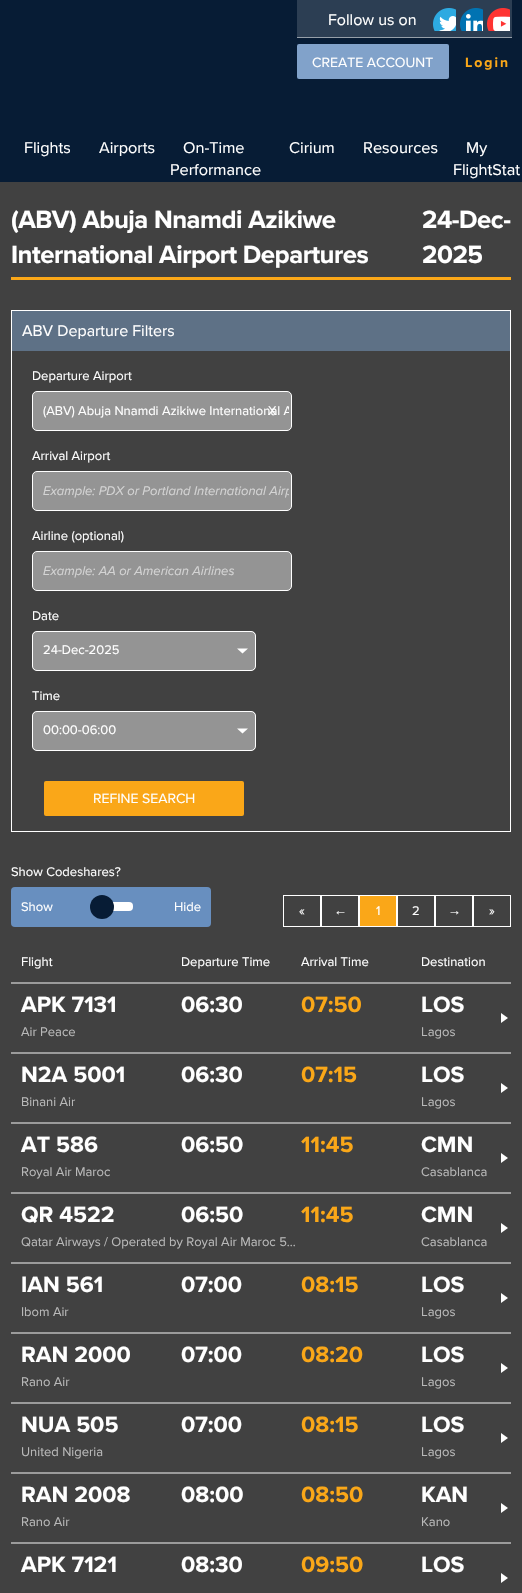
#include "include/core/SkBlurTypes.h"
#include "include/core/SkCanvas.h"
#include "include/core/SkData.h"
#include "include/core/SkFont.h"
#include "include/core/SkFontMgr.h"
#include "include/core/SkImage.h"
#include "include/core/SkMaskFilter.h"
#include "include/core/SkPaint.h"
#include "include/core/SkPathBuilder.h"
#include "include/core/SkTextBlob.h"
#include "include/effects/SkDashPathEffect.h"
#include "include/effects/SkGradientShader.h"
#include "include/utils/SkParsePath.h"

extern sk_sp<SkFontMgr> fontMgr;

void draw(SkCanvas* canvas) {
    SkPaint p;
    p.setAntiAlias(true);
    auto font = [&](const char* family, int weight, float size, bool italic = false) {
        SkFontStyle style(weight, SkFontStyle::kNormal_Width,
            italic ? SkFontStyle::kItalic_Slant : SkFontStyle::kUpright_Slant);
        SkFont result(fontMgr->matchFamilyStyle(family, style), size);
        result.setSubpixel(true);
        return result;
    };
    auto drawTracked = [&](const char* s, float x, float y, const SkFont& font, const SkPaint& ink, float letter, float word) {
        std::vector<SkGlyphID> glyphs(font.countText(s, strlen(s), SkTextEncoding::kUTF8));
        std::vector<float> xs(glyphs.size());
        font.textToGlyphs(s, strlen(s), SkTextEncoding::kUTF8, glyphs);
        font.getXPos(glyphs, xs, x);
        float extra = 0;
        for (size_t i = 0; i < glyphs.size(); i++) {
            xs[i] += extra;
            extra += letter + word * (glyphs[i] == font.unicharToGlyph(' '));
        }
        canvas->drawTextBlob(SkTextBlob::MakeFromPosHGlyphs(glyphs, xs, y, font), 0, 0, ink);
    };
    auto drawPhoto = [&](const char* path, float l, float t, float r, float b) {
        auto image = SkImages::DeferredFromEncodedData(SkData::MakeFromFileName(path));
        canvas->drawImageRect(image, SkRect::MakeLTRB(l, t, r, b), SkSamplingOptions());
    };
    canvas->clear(0xFF414141);
    {
        const struct { float l, t, r, b; SkColor color; } items[] = {
            {0, 0, 522, 182, 0xFF071C35},
            {297, 0, 512, 37, 0xFF2C3E53},
            {297, 37, 512, 38, 0xFF969FA9},
        };
        for (auto [l, t, r, b, color] : items) {
            p.setColor(color);
            canvas->drawRect(SkRect::MakeLTRB(l, t, r, b), p);
        }
    }
    auto font1 = font("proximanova", 400, 16);
    p.setColor(0xFFFFFFFF);
    canvas->drawString("Follow us on", 328, 25, font1, p);
    drawPhoto("media/1.png", 433, 8, 456, 31);
    drawPhoto("media/2.png", 460, 8, 483, 31);
    drawPhoto("media/3.png", 487, 8, 510, 31);
    p.setColor(0xFF81A2CA);
    canvas->drawRoundRect(SkRect::MakeLTRB(297, 44, 449, 79), 2, 2, p);
    auto font2 = font("proximanova", 400, 14);
    p.setColor(0xFFFFFFFF);
    canvas->drawString("CREATE ACCOUNT", 312, 67, font2, p);
    auto font3 = font("proximanova", 700, 14);
    p.setColor(0xFFFAA718);
    drawTracked("Login", 465, 67, font3, p, 2, 0);
    auto font4 = font("proximanova", 400, 16.25f);
    p.setColor(0xFFFFFFFF);
    {
        const struct { const char* s; float x, y; } items[] = {
            {"Flights", 24, 153},
            {"Airports", 99, 153},
            {"On-Time", 183, 153},
            {"Performance", 170, 175},
            {"Cirium", 289, 153},
            {"Resources", 363, 153},
            {"My", 466, 153},
            {"FlightStat", 453, 175},
        };
        for (auto [s, x, y] : items) {
            canvas->drawString(s, x, y, font4, p);
        }
    }
    p.setColor(0xFFFAA718);
    canvas->drawRect(SkRect::MakeLTRB(11, 277, 511, 280), p);
    auto font5 = font("proximanova", 700, 25.75f);
    p.setColor(0xFFFFFFFF);
    {
        const struct { const char* s; float x, y; } items[] = {
            {"(ABV) Abuja Nnamdi Azikiwe", 11, 228},
            {"24-Dec-", 422, 228},
            {"2025", 422, 263},
            {"International Airport Departures", 11, 263},
        };
        for (auto [s, x, y] : items) {
            drawTracked(s, x, y, font5, p, -0.5f, 0);
        }
    }
    p.setStyle(SkPaint::kStroke_Style);
    p.setStrokeWidth(1);
    canvas->drawRect(SkRect::MakeLTRB(11.5f, 310.5f, 510.5f, 831.5f), p);
    p.setStyle(SkPaint::kFill_Style);
    p.setColor(0xFF5E7186);
    canvas->drawRect(SkRect::MakeLTRB(12, 311, 510, 351), p);
    p.setColor(0xFFFFFFFF);
    canvas->drawString("ABV Departure Filters", 22, 336, font1, p);
    auto font6 = font("proximanova", 400, 13);
    canvas->drawString("Departure Airport", 32, 380, font6, p);
    p.setColor(0xFF949494);
    canvas->drawRoundRect(SkRect::MakeLTRB(32.5f, 391.5f, 291.5f, 430.5f), 4.5f, 4.5f, p);
    p.setStyle(SkPaint::kStroke_Style);
    p.setColor(0xFFFFFFFF);
    canvas->drawRoundRect(SkRect::MakeLTRB(32.5f, 391.5f, 291.5f, 430.5f), 4.5f, 4.5f, p);
    canvas->save();
    canvas->clipRect(SkRect::MakeLTRB(43, 391, 289, 431));
    p.setStyle(SkPaint::kFill_Style);
    canvas->drawString("(ABV) Abuja Nnamdi Azikiwe International A", 43, 415, font6, p);
    canvas->restore();
    canvas->drawString("X", 268, 415, font6, p);
    canvas->drawString("Arrival Airport", 32, 460, font6, p);
    p.setColor(0xFF949494);
    canvas->drawRoundRect(SkRect::MakeLTRB(32.5f, 471.5f, 291.5f, 510.5f), 4.5f, 4.5f, p);
    p.setStyle(SkPaint::kStroke_Style);
    p.setColor(0xFFFFFFFF);
    canvas->drawRoundRect(SkRect::MakeLTRB(32.5f, 471.5f, 291.5f, 510.5f), 4.5f, 4.5f, p);
    canvas->save();
    canvas->clipRect(SkRect::MakeLTRB(43, 481, 289, 500));
    auto font7 = font("proximanova", 400, 13, true);
    p.setStyle(SkPaint::kFill_Style);
    p.setColor(0xFFD4D4D4);
    canvas->drawString("Example: PDX or Portland International Airp", 43, 495, font7, p);
    canvas->restore();
    p.setColor(0xFFFFFFFF);
    canvas->drawString("Airline (optional)", 32, 540, font6, p);
    p.setColor(0xFF949494);
    canvas->drawRoundRect(SkRect::MakeLTRB(32.5f, 551.5f, 291.5f, 590.5f), 4.5f, 4.5f, p);
    p.setStyle(SkPaint::kStroke_Style);
    p.setColor(0xFFFFFFFF);
    canvas->drawRoundRect(SkRect::MakeLTRB(32.5f, 551.5f, 291.5f, 590.5f), 4.5f, 4.5f, p);
    p.setStyle(SkPaint::kFill_Style);
    p.setColor(0xFFD4D4D4);
    canvas->drawString("Example: AA or American Airlines", 43, 575, font7, p);
    p.setColor(0xFFFFFFFF);
    canvas->drawString("Date", 32, 620, font6, p);
    p.setColor(0xFF949494);
    canvas->drawRoundRect(SkRect::MakeLTRB(32, 631, 256, 671), 5, 5, p);
    p.setColor(0xFFFFFFFF);
    canvas->drawPath(SkPathBuilder().moveTo(237, 648.5f).lineTo(248, 648.5f).lineTo(242.5f, 653.5f).close().detach(), p);
    p.setStyle(SkPaint::kStroke_Style);
    canvas->drawRoundRect(SkRect::MakeLTRB(32.5f, 631.5f, 255.5f, 670.5f), 4.5f, 4.5f, p);
    p.setStyle(SkPaint::kFill_Style);
    canvas->drawString("24-Dec-2025", 43, 654, font6, p);
    canvas->drawString("Time", 32, 700, font6, p);
    p.setColor(0xFF949494);
    canvas->drawRoundRect(SkRect::MakeLTRB(32, 711, 256, 751), 5, 5, p);
    p.setColor(0xFFFFFFFF);
    canvas->drawPath(SkPathBuilder().moveTo(237, 728.5f).lineTo(248, 728.5f).lineTo(242.5f, 733.5f).close().detach(), p);
    p.setStyle(SkPaint::kStroke_Style);
    canvas->drawRoundRect(SkRect::MakeLTRB(32.5f, 711.5f, 255.5f, 750.5f), 4.5f, 4.5f, p);
    p.setStyle(SkPaint::kFill_Style);
    canvas->drawString("00:00-06:00", 43, 734, font6, p);
    p.setColor(0xFFFAA718);
    canvas->drawRoundRect(SkRect::MakeLTRB(44, 781, 244, 816), 2, 2, p);
    p.setColor(0xFFFFFFFF);
    canvas->drawString("REFINE SEARCH", 93, 803, font2, p);
    canvas->drawString("Show Codeshares?", 11, 876, font6, p);
    p.setColor(0xFF688FBF);
    canvas->drawRoundRect(SkRect::MakeLTRB(11, 887, 211, 927), 4, 4, p);
    p.setColor(0xFFFFFFFF);
    canvas->drawString("Show", 21, 911, font6, p);
    canvas->drawRoundRect(SkRect::MakeLTRB(93, 902, 133, 911), 4, 4, p);
    p.setColor(0xFF071C35);
    canvas->drawCircle(102, 907, 12, p);
    p.setColor(0xFFFFFFFF);
    canvas->drawString("Hide", 174, 911, font6, p);
    p.setStyle(SkPaint::kStroke_Style);
    canvas->drawRect(SkRect::MakeLTRB(283.5f, 895.5f, 320.5f, 926.5f), p);
    p.setStyle(SkPaint::kFill_Style);
    canvas->drawString("«", 299, 915, font6, p);
    p.setStyle(SkPaint::kStroke_Style);
    canvas->drawRect(SkRect::MakeLTRB(321.5f, 895.5f, 358.5f, 926.5f), p);
    auto font8 = font("Liberation Sans", 400, 13);
    p.setStyle(SkPaint::kFill_Style);
    canvas->drawString("←", 334, 915, font8, p);
    p.setColor(0xFFFAA718);
    canvas->drawRect(SkRect::MakeLTRB(359.5f, 895.5f, 396.5f, 926.5f), p);
    p.setStyle(SkPaint::kStroke_Style);
    p.setColor(0xFFFFFFFF);
    canvas->drawRect(SkRect::MakeLTRB(359.5f, 895.5f, 396.5f, 926.5f), p);
    p.setStyle(SkPaint::kFill_Style);
    canvas->drawString("1", 376, 915, font6, p);
    p.setStyle(SkPaint::kStroke_Style);
    canvas->drawRect(SkRect::MakeLTRB(397.5f, 895.5f, 434.5f, 926.5f), p);
    p.setStyle(SkPaint::kFill_Style);
    canvas->drawString("2", 412, 915, font6, p);
    p.setStyle(SkPaint::kStroke_Style);
    canvas->drawRect(SkRect::MakeLTRB(435.5f, 895.5f, 472.5f, 926.5f), p);
    p.setStyle(SkPaint::kFill_Style);
    canvas->drawString("→", 448, 915, font8, p);
    p.setStyle(SkPaint::kStroke_Style);
    canvas->drawRect(SkRect::MakeLTRB(473.5f, 895.5f, 510.5f, 926.5f), p);
    p.setStyle(SkPaint::kFill_Style);
    canvas->drawString("»", 489, 915, font6, p);
    p.setColor(0xFF9B9B9B);
    canvas->drawRect(SkRect::MakeLTRB(11, 982, 511, 984), p);
    p.setColor(0xFFFFFFFF);
    {
        const struct { const char* s; float x, y; } items[] = {
            {"Flight", 21, 966},
            {"Departure Time", 181, 966},
            {"Arrival Time", 301, 966},
            {"Destination", 421, 966},
        };
        for (auto [s, x, y] : items) {
            canvas->drawString(s, x, y, font6, p);
        }
    }
    p.setColor(0xFF9B9B9B);
    canvas->drawRect(SkRect::MakeLTRB(11, 1052, 511, 1054), p);
    auto font9 = font("proximanova", 700, 23);
    p.setColor(0xFFFFFFFF);
    canvas->drawString("APK 7131", 21, 1012, font9, p);
    canvas->drawString("06:30", 181, 1012, font9, p);
    p.setColor(0xFFFAA718);
    canvas->drawString("07:50", 301, 1012, font9, p);
    p.setColor(0xFFFFFFFF);
    canvas->drawString("LOS", 421, 1012, font9, p);
    canvas->drawPath(SkPathBuilder().moveTo(501, 1023).lineTo(501, 1013).lineTo(508, 1018).close().detach(), p);
    p.setColor(0xFFB9B9B9);
    canvas->drawString("Air Peace", 21, 1036, font6, p);
    canvas->drawString("Lagos", 421, 1036, font6, p);
    p.setColor(0xFF9B9B9B);
    canvas->drawRect(SkRect::MakeLTRB(11, 1122, 511, 1124), p);
    p.setColor(0xFFFFFFFF);
    canvas->drawString("N2A 5001", 21, 1082, font9, p);
    canvas->drawString("06:30", 181, 1082, font9, p);
    p.setColor(0xFFFAA718);
    canvas->drawString("07:15", 301, 1082, font9, p);
    p.setColor(0xFFFFFFFF);
    canvas->drawString("LOS", 421, 1082, font9, p);
    canvas->drawPath(SkPathBuilder().moveTo(501, 1093).lineTo(501, 1083).lineTo(508, 1088).close().detach(), p);
    p.setColor(0xFFB9B9B9);
    canvas->drawString("Binani Air", 21, 1106, font6, p);
    canvas->drawString("Lagos", 421, 1106, font6, p);
    p.setColor(0xFF9B9B9B);
    canvas->drawRect(SkRect::MakeLTRB(11, 1192, 511, 1194), p);
    p.setColor(0xFFFFFFFF);
    canvas->drawString("AT 586", 21, 1152, font9, p);
    canvas->drawString("06:50", 181, 1152, font9, p);
    p.setColor(0xFFFAA718);
    canvas->drawString("11:45", 301, 1152, font9, p);
    p.setColor(0xFFFFFFFF);
    canvas->drawString("CMN", 421, 1152, font9, p);
    canvas->drawPath(SkPathBuilder().moveTo(501, 1163).lineTo(501, 1153).lineTo(508, 1158).close().detach(), p);
    p.setColor(0xFFB9B9B9);
    canvas->drawString("Royal Air Maroc", 21, 1176, font6, p);
    canvas->drawString("Casablanca", 421, 1176, font6, p);
    p.setColor(0xFF9B9B9B);
    canvas->drawRect(SkRect::MakeLTRB(11, 1262, 511, 1264), p);
    p.setColor(0xFFFFFFFF);
    canvas->drawString("QR 4522", 21, 1222, font9, p);
    canvas->drawString("06:50", 181, 1222, font9, p);
    p.setColor(0xFFFAA718);
    canvas->drawString("11:45", 301, 1222, font9, p);
    p.setColor(0xFFFFFFFF);
    canvas->drawString("CMN", 421, 1222, font9, p);
    canvas->drawPath(SkPathBuilder().moveTo(501, 1233).lineTo(501, 1223).lineTo(508, 1228).close().detach(), p);
    p.setColor(0xFFB9B9B9);
    canvas->drawString("Qatar Airways / Operated by Royal Air Maroc 5…", 21, 1246, font6, p);
    canvas->drawString("Casablanca", 421, 1246, font6, p);
    p.setColor(0xFF9B9B9B);
    canvas->drawRect(SkRect::MakeLTRB(11, 1332, 511, 1334), p);
    p.setColor(0xFFFFFFFF);
    canvas->drawString("IAN 561", 21, 1292, font9, p);
    canvas->drawString("07:00", 181, 1292, font9, p);
    p.setColor(0xFFFAA718);
    canvas->drawString("08:15", 301, 1292, font9, p);
    p.setColor(0xFFFFFFFF);
    canvas->drawString("LOS", 421, 1292, font9, p);
    canvas->drawPath(SkPathBuilder().moveTo(501, 1303).lineTo(501, 1293).lineTo(508, 1298).close().detach(), p);
    p.setColor(0xFFB9B9B9);
    canvas->drawString("Ibom Air", 21, 1316, font6, p);
    canvas->drawString("Lagos", 421, 1316, font6, p);
    p.setColor(0xFF9B9B9B);
    canvas->drawRect(SkRect::MakeLTRB(11, 1402, 511, 1404), p);
    p.setColor(0xFFFFFFFF);
    canvas->drawString("RAN 2000", 21, 1362, font9, p);
    canvas->drawString("07:00", 181, 1362, font9, p);
    p.setColor(0xFFFAA718);
    canvas->drawString("08:20", 301, 1362, font9, p);
    p.setColor(0xFFFFFFFF);
    canvas->drawString("LOS", 421, 1362, font9, p);
    canvas->drawPath(SkPathBuilder().moveTo(501, 1373).lineTo(501, 1363).lineTo(508, 1368).close().detach(), p);
    p.setColor(0xFFB9B9B9);
    canvas->drawString("Rano Air", 21, 1386, font6, p);
    canvas->drawString("Lagos", 421, 1386, font6, p);
    p.setColor(0xFF9B9B9B);
    canvas->drawRect(SkRect::MakeLTRB(11, 1472, 511, 1474), p);
    p.setColor(0xFFFFFFFF);
    canvas->drawString("NUA 505", 21, 1432, font9, p);
    canvas->drawString("07:00", 181, 1432, font9, p);
    p.setColor(0xFFFAA718);
    canvas->drawString("08:15", 301, 1432, font9, p);
    p.setColor(0xFFFFFFFF);
    canvas->drawString("LOS", 421, 1432, font9, p);
    canvas->drawPath(SkPathBuilder().moveTo(501, 1443).lineTo(501, 1433).lineTo(508, 1438).close().detach(), p);
    p.setColor(0xFFB9B9B9);
    canvas->drawString("United Nigeria", 21, 1456, font6, p);
    canvas->drawString("Lagos", 421, 1456, font6, p);
    p.setColor(0xFF9B9B9B);
    canvas->drawRect(SkRect::MakeLTRB(11, 1542, 511, 1544), p);
    p.setColor(0xFFFFFFFF);
    canvas->drawString("RAN 2008", 21, 1502, font9, p);
    canvas->drawString("08:00", 181, 1502, font9, p);
    p.setColor(0xFFFAA718);
    canvas->drawString("08:50", 301, 1502, font9, p);
    p.setColor(0xFFFFFFFF);
    canvas->drawString("KAN", 421, 1502, font9, p);
    canvas->drawPath(SkPathBuilder().moveTo(501, 1513).lineTo(501, 1503).lineTo(508, 1508).close().detach(), p);
    p.setColor(0xFFB9B9B9);
    canvas->drawString("Rano Air", 21, 1526, font6, p);
    canvas->drawString("Kano", 421, 1526, font6, p);
    p.setColor(0xFFFFFFFF);
    canvas->drawString("APK 7121", 21, 1572, font9, p);
    canvas->drawString("08:30", 181, 1572, font9, p);
    p.setColor(0xFFFAA718);
    canvas->drawString("09:50", 301, 1572, font9, p);
    p.setColor(0xFFFFFFFF);
    canvas->drawString("LOS", 421, 1572, font9, p);
    canvas->drawPath(SkPathBuilder().moveTo(501, 1583).lineTo(501, 1573).lineTo(508, 1578).close().detach(), p);
}
